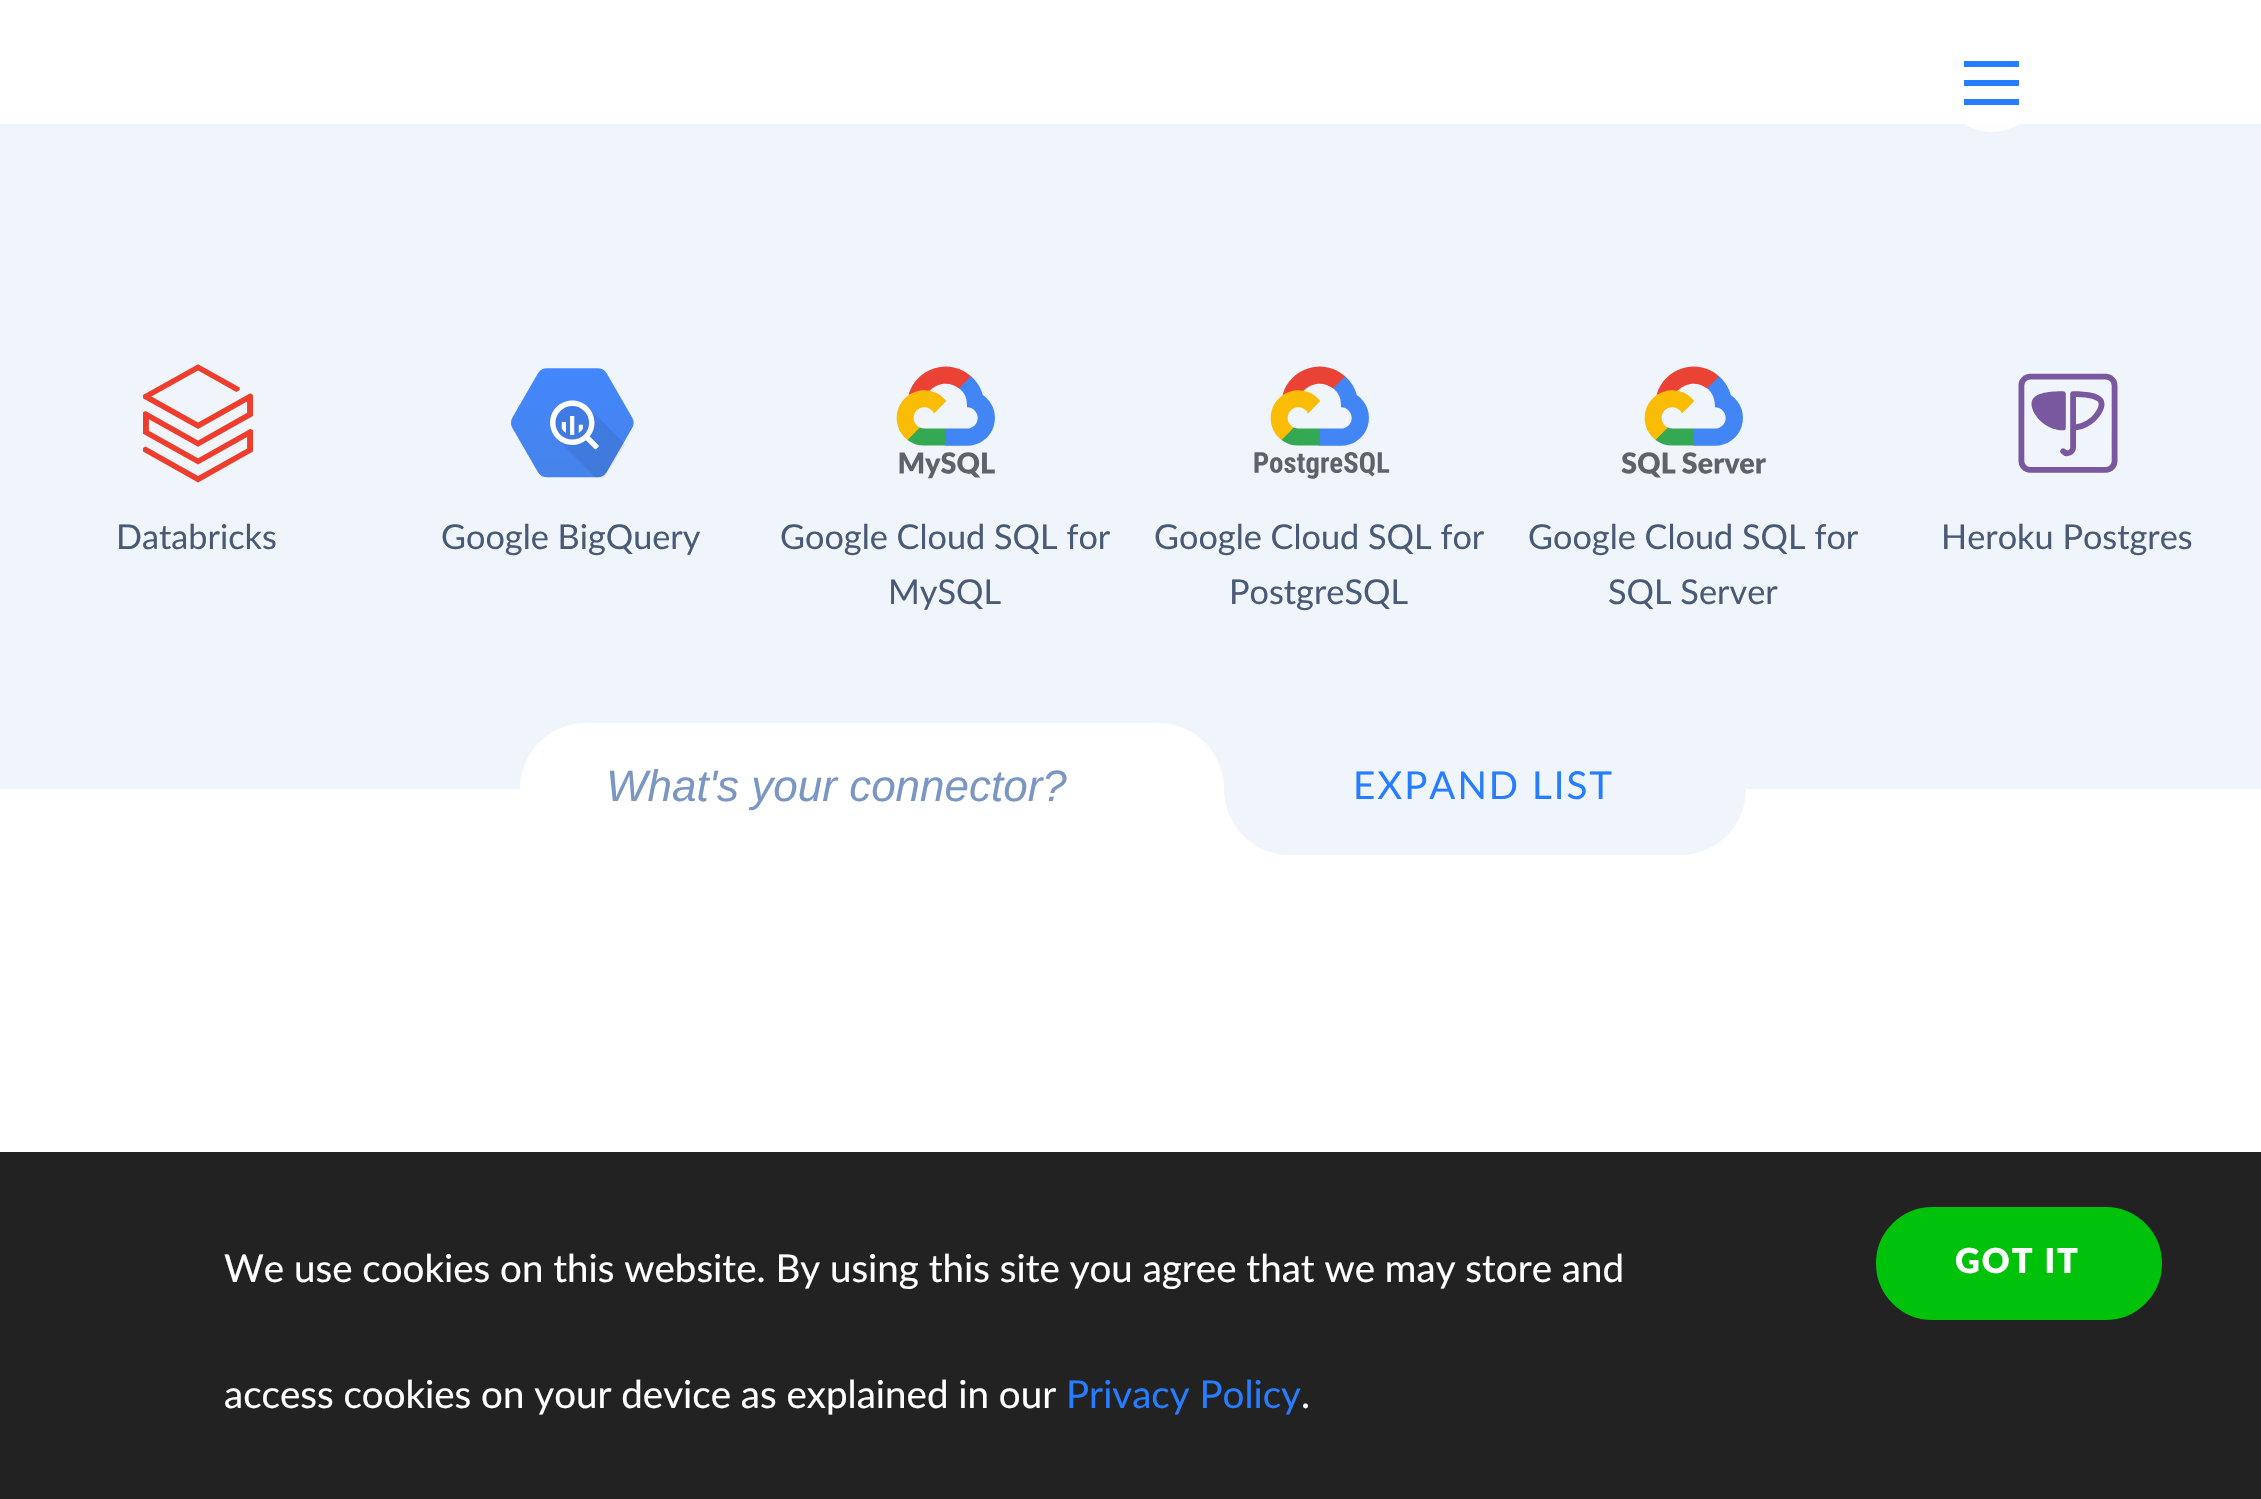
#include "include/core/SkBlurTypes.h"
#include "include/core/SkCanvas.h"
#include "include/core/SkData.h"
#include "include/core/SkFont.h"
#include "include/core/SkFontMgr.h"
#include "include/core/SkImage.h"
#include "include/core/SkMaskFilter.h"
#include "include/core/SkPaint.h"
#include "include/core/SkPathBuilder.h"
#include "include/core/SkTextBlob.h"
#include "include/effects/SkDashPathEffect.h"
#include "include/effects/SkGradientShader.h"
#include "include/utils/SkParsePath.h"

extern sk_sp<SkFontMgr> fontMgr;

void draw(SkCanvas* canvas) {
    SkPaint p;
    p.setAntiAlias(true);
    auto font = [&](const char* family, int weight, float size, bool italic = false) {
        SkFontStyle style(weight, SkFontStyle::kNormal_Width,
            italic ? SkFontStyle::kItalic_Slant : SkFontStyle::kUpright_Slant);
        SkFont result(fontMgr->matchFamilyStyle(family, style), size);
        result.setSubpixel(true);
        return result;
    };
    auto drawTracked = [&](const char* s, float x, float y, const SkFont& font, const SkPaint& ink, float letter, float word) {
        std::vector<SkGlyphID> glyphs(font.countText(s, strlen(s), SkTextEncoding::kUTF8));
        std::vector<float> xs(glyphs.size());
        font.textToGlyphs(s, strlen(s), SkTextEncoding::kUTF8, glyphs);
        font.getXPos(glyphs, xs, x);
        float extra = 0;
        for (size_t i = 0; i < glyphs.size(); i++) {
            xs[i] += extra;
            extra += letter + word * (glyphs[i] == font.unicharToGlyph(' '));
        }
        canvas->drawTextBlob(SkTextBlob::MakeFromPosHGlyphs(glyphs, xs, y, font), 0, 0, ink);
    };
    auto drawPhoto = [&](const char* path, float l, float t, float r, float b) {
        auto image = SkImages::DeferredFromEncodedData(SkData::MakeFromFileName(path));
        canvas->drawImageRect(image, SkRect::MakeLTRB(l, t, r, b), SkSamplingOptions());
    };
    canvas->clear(0xFFFFFFFF);
    p.setColor(0xFFF0F5FC);
    canvas->drawRect(SkRect::MakeLTRB(0, 124, 2261, 789), p);
    p.setColor(0xE6FFFFFF);
    canvas->drawCircle(1991.5f, 82.5f, 49.5f, p);
    {
        const struct { float l, t, r, b; SkColor color; } items[] = {
            {1964, 80, 2019, 86, 0xFF277DFF},
            {1964, 61, 2019, 67, 0xFF277DFF},
            {1964, 99, 2019, 105, 0xFF277DFF},
        };
        for (auto [l, t, r, b, color] : items) {
            p.setColor(color);
            canvas->drawRect(SkRect::MakeLTRB(l, t, r, b), p);
        }
    }
    drawPhoto("media/1.png", 143, 364, 253, 483);
    auto font1 = font("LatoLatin", 400, 34.25f);
    p.setColor(0xFF485A76);
    canvas->drawString("Databricks", 116, 549, font1, p);
    drawPhoto("media/2.png", 511, 368, 634, 478);
    canvas->drawString("Google BigQuery", 441, 549, font1, p);
    drawPhoto("media/3.png", 896, 366, 995, 479);
    canvas->drawString("Google Cloud SQL for", 780, 549, font1, p);
    canvas->drawString("MySQL", 888, 604, font1, p);
    drawPhoto("media/4.png", 1254, 366, 1390, 479);
    canvas->drawString("Google Cloud SQL for", 1154, 549, font1, p);
    canvas->drawString("PostgreSQL", 1229, 604, font1, p);
    drawPhoto("media/5.png", 1621, 366, 1766, 478);
    canvas->drawString("Google Cloud SQL for", 1528, 549, font1, p);
    canvas->drawString("SQL Server", 1608, 604, font1, p);
    drawPhoto("media/6.png", 2018, 373, 2118, 473);
    canvas->drawString("Heroku Postgres", 1941, 549, font1, p);
    p.setColor(0xFFFFFFFF);
    canvas->drawRoundRect(SkRect::MakeLTRB(520, 723, 1224, 855), 66, 66, p);
    auto font2 = font("Liberation Sans", 400, 44, true);
    p.setColor(0xFF7A96C3);
    canvas->drawString("What's your connector?", 606, 801, font2, p);
    p.setColor(0xFFF0F5FC);
    canvas->drawRoundRect(SkRect::MakeLTRB(1224, 723, 1746, 855), 66, 66, p);
    auto font3 = font("LatoLatin", 400, 38.5f);
    p.setColor(0xFF277DFF);
    drawTracked("EXPAND LIST", 1353, 799, font3, p, 2, 0);
    p.setColor(0xFF222222);
    canvas->drawRect(SkRect::MakeLTRB(0, 1152, 2261, 1499), p);
    p.setColor(0xFFFFFFFF);
    canvas->drawString("We use cookies on this website. By using this site you agree that we may store and", 224, 1282, font3, p);
    canvas->drawString("access cookies on your device as explained in our", 224, 1408, font3, p);
    p.setColor(0xFF277DFF);
    canvas->drawString("Privacy Policy", 1066, 1408, font3, p);
    p.setColor(0xFFFFFFFF);
    canvas->drawString(".", 1301, 1408, font3, p);
    p.setColor(0xFF00C20B);
    canvas->drawRoundRect(SkRect::MakeLTRB(1877.5f, 1208.5f, 2160.5f, 1318.5f), 55, 55, p);
    p.setStyle(SkPaint::kStroke_Style);
    p.setStrokeWidth(3);
    canvas->drawRoundRect(SkRect::MakeLTRB(1877.5f, 1208.5f, 2160.5f, 1318.5f), 55, 55, p);
    auto font4 = font("LatoLatin", 900, 34.25f);
    p.setStyle(SkPaint::kFill_Style);
    p.setColor(0xFFFFFFFF);
    drawTracked("GOT IT", 1955, 1273, font4, p, 2, 0);
}
